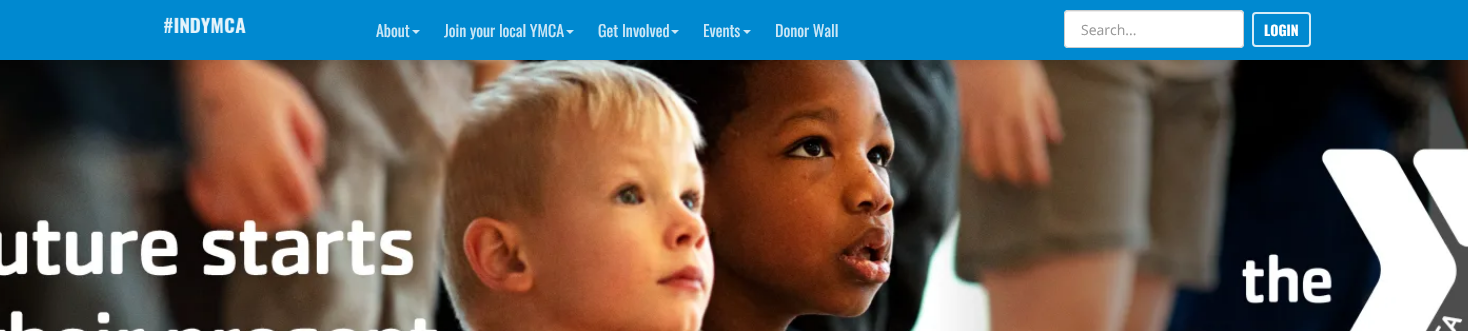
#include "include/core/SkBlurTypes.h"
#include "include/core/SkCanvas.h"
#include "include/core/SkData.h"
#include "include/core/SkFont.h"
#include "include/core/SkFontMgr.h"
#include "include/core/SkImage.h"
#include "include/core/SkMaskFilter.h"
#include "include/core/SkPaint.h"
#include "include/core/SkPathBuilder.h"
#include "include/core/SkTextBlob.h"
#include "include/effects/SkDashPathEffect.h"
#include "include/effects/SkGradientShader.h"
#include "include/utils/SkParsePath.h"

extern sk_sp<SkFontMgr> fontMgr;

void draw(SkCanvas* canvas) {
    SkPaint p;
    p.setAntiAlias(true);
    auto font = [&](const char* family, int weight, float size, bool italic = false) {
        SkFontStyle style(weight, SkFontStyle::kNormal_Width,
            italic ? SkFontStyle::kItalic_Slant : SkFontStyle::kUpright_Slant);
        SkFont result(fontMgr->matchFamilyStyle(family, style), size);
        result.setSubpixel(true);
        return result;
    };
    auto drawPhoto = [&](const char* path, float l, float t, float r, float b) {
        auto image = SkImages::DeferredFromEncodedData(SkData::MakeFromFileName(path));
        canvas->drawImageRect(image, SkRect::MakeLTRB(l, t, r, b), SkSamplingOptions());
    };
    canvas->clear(0xFFFFFFFF);
    drawPhoto("media/2.png", 0, 60, 1468, 331);
    p.setColor(0x29020303);
    p.setMaskFilter(SkMaskFilter::MakeBlur(kNormal_SkBlurStyle, 6.5f));
    canvas->drawRect(SkRect::MakeLTRB(0, 3, 1468, 63), p);
    p.setMaskFilter(nullptr);
    p.setColor(0xFF0089D0);
    canvas->drawRect(SkRect::MakeLTRB(0, 0, 1468, 60), p);
    drawPhoto("media/1.png", 164, 17, 246, 33);
    auto font1 = font("Oswald", 400, 16);
    p.setColor(0xFFCCE7F6);
    canvas->drawString("About", 376, 37, font1, p);
    canvas->drawPath(SkPathBuilder().moveTo(412, 30).lineTo(420, 30).lineTo(416, 34).close().detach(), p);
    canvas->drawString("Join your local YMCA", 444, 37, font1, p);
    canvas->drawPath(SkPathBuilder().moveTo(566, 30).lineTo(574, 30).lineTo(570, 34).close().detach(), p);
    canvas->drawString("Get Involved", 598, 37, font1, p);
    canvas->drawPath(SkPathBuilder().moveTo(671, 30).lineTo(679, 30).lineTo(675, 34).close().detach(), p);
    canvas->drawString("Events", 703, 37, font1, p);
    canvas->drawPath(SkPathBuilder().moveTo(743, 30).lineTo(751, 30).lineTo(747, 34).close().detach(), p);
    canvas->drawString("Donor Wall", 775, 37, font1, p);
    p.setColor(0xFFFFFFFF);
    canvas->drawRoundRect(SkRect::MakeLTRB(1064, 10, 1244, 48), 4, 4, p);
    p.setColor(0xFFECECEC);
    canvas->drawPath(SkPathBuilder().moveTo(1068, 12).lineTo(1240, 12).cubicTo(1242, 12, 1243, 13, 1243, 15).lineTo(1243, 14).cubicTo(1243, 12, 1242, 11, 1240, 11).lineTo(1068, 11).cubicTo(1066, 11, 1065, 12, 1065, 14).lineTo(1065, 15).cubicTo(1065, 13, 1066, 12, 1068, 12).close().detach(), p);
    p.setStyle(SkPaint::kStroke_Style);
    p.setStrokeWidth(1);
    p.setColor(0xFFCCCCCC);
    canvas->drawRoundRect(SkRect::MakeLTRB(1064.5f, 10.5f, 1243.5f, 47.5f), 3.5f, 3.5f, p);
    auto font2 = font("Open Sans", 400, 14);
    p.setStyle(SkPaint::kFill_Style);
    p.setColor(0xFF999999);
    canvas->drawString("Search...", 1081, 35, font2, p);
    p.setStyle(SkPaint::kStroke_Style);
    p.setStrokeWidth(2);
    p.setColor(0xFFD5ECF7);
    canvas->drawRoundRect(SkRect::MakeLTRB(1253, 13, 1310, 46), 3, 3, p);
    auto font3 = font("Oswald", 700, 14);
    p.setStyle(SkPaint::kFill_Style);
    p.setColor(0xFFFFFFFF);
    canvas->drawString("LOGIN", 1264, 36, font3, p);
}
